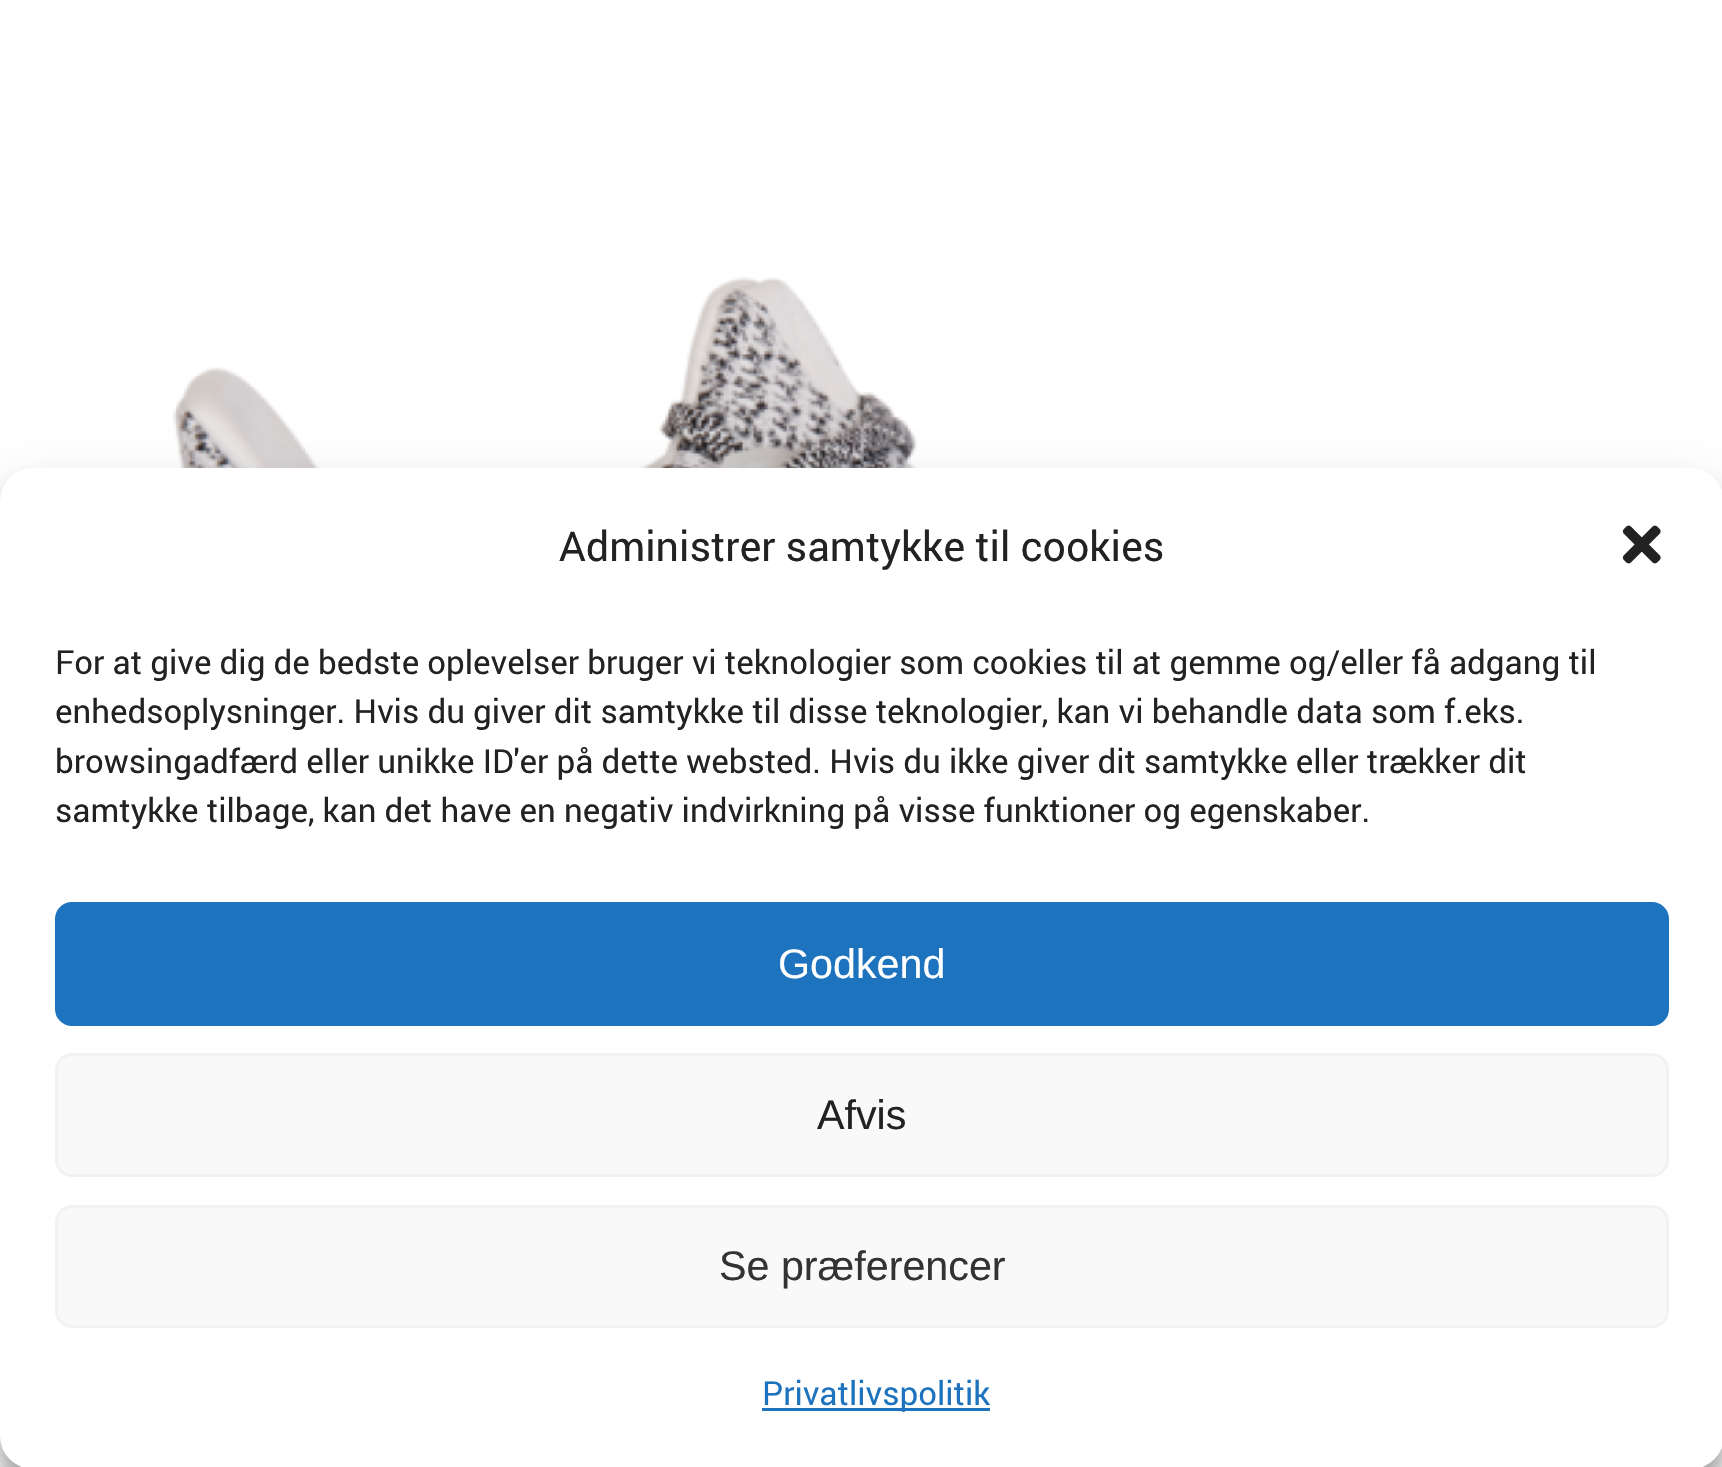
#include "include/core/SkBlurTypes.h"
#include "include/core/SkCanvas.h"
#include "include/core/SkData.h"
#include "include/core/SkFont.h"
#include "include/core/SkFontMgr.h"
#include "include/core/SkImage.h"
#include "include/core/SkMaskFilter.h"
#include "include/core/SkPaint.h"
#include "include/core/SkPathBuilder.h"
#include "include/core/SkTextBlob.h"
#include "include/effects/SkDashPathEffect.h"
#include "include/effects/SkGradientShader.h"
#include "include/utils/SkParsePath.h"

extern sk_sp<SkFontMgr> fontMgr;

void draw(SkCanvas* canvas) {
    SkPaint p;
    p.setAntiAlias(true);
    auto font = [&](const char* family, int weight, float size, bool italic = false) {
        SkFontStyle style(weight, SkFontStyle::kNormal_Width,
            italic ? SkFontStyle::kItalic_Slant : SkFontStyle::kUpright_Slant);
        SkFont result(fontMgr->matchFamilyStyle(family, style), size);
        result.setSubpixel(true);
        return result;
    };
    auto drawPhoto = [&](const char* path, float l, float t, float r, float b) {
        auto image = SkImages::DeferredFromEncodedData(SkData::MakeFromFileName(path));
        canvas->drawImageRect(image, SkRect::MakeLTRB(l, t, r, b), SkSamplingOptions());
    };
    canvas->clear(0xFFFFFFFF);
    drawPhoto("media/1.png", 172, 277, 917, 468);
    p.setColor(0x3B000000);
    p.setMaskFilter(SkMaskFilter::MakeBlur(kNormal_SkBlurStyle, 8));
    canvas->drawRoundRect(SkRect::MakeLTRB(0, 484, 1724, 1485), 33, 33, p);
    p.setMaskFilter(nullptr);
    p.setColor(0x30000000);
    p.setMaskFilter(SkMaskFilter::MakeBlur(kNormal_SkBlurStyle, 27.5f));
    canvas->drawRoundRect(SkRect::MakeLTRB(0, 495, 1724, 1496), 33, 33, p);
    p.setMaskFilter(nullptr);
    p.setColor(0xFFFFFFFF);
    canvas->drawRoundRect(SkRect::MakeLTRB(0, 468, 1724, 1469), 33, 33, p);
    auto font1 = font("Roboto", 400, 41.25f);
    p.setColor(0xFF222222);
    canvas->drawString("Administrer samtykke til cookies", 559, 561, font1, p);
    drawPhoto("media/2.png", 1622, 525, 1661, 564);
    auto font2 = font("Roboto", 400, 33);
    {
        const struct { const char* s; float x, y; } items[] = {
            {"For at give dig de bedste oplevelser bruger vi teknologier som cookies til at gemme og/eller få adgang til", 55, 674},
            {"enhedsoplysninger. Hvis du giver dit samtykke til disse teknologier, kan vi behandle data som f.eks.", 55, 723},
            {"browsingadfærd eller unikke ID'er på dette websted. Hvis du ikke giver dit samtykke eller trækker dit", 55, 773},
            {"samtykke tilbage, kan det have en negativ indvirkning på visse funktioner og egenskaber.", 55, 822},
        };
        for (auto [s, x, y] : items) {
            canvas->drawString(s, x, y, font2, p);
        }
    }
    p.setColor(0xFF1E73BE);
    canvas->drawRoundRect(SkRect::MakeLTRB(56.5f, 903.5f, 1667.5f, 1024.5f), 15.5f, 15.5f, p);
    p.setStyle(SkPaint::kStroke_Style);
    p.setStrokeWidth(3);
    canvas->drawRoundRect(SkRect::MakeLTRB(56.5f, 903.5f, 1667.5f, 1024.5f), 15.5f, 15.5f, p);
    auto font3 = font("Liberation Sans", 400, 41.25f);
    p.setStyle(SkPaint::kFill_Style);
    p.setColor(0xFFFFFFFF);
    canvas->drawString("Godkend", 778, 978, font3, p);
    p.setColor(0xFFF9F9F9);
    canvas->drawRoundRect(SkRect::MakeLTRB(56.5f, 1054.5f, 1667.5f, 1175.5f), 15.5f, 15.5f, p);
    p.setStyle(SkPaint::kStroke_Style);
    p.setColor(0xFFF2F2F2);
    canvas->drawRoundRect(SkRect::MakeLTRB(56.5f, 1054.5f, 1667.5f, 1175.5f), 15.5f, 15.5f, p);
    p.setStyle(SkPaint::kFill_Style);
    p.setColor(0xFF222222);
    canvas->drawString("Afvis", 817, 1129, font3, p);
    p.setColor(0xFFF9F9F9);
    canvas->drawRoundRect(SkRect::MakeLTRB(56.5f, 1206.5f, 1667.5f, 1326.5f), 15.5f, 15.5f, p);
    p.setStyle(SkPaint::kStroke_Style);
    p.setColor(0xFFF2F2F2);
    canvas->drawRoundRect(SkRect::MakeLTRB(56.5f, 1206.5f, 1667.5f, 1326.5f), 15.5f, 15.5f, p);
    p.setStyle(SkPaint::kFill_Style);
    p.setColor(0xFF333333);
    canvas->drawString("Se præferencer", 719, 1280, font3, p);
    p.setColor(0xFF1E73BE);
    canvas->drawRect(SkRect::MakeLTRB(762, 1408, 990, 1411), p);
    canvas->drawString("Privatlivspolitik", 762, 1405, font2, p);
}
